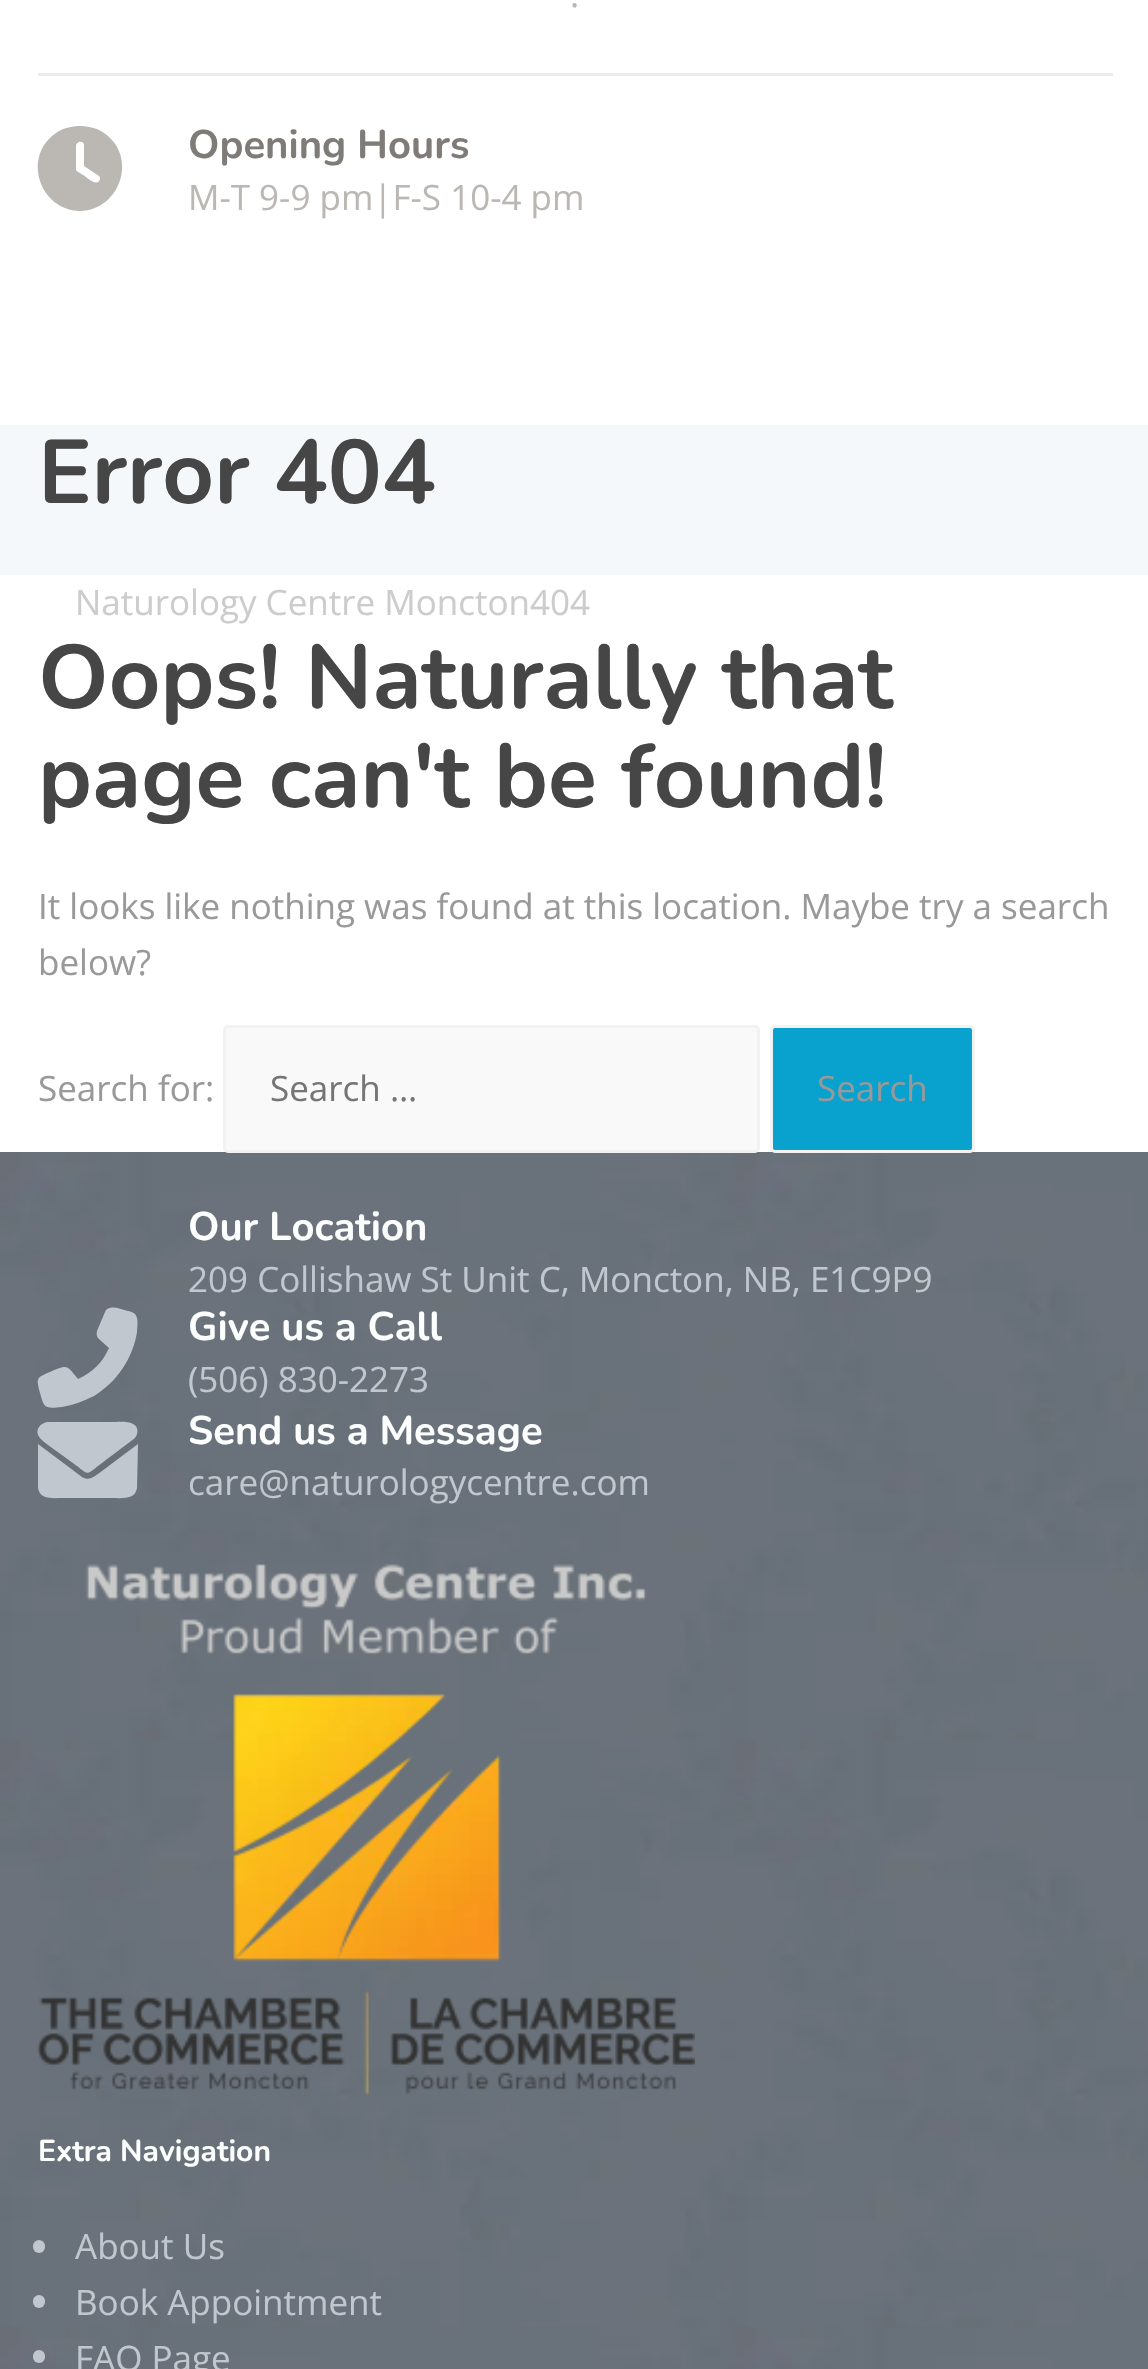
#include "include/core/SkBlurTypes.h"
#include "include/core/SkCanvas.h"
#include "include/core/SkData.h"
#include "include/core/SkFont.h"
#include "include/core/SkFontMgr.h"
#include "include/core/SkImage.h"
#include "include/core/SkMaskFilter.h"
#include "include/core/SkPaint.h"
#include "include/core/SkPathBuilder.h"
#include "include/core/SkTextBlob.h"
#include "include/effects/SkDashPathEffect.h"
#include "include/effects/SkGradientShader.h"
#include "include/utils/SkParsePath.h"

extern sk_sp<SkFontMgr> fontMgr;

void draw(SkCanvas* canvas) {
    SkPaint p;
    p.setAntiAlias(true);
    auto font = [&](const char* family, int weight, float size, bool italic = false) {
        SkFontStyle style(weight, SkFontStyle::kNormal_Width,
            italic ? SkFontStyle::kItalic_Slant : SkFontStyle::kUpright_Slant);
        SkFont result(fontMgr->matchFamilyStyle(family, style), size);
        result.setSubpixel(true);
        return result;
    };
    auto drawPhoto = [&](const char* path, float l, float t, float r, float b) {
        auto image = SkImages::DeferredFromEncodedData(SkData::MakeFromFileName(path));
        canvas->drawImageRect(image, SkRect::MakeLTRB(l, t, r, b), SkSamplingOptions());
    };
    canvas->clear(0xFFFFFFFF);
    p.setColor(0xFFEBEBEB);
    canvas->drawRect(SkRect::MakeLTRB(38, 73, 1113, 76), p);
    auto font1 = font("Open Sans", 400, 35);
    p.setColor(0xFFBBB7B3);
    canvas->drawString(".", 570, 7, font1, p);
    canvas->drawPath(SkPathBuilder().moveTo(80, 211).cubicTo(39, 210, 22, 156, 56, 133).cubicTo(63, 128, 72, 126, 80, 126).cubicTo(88, 126, 97, 128, 104, 133).cubicTo(138, 156, 121, 210, 80, 211).close().moveTo(76, 146).lineTo(76, 170).cubicTo(77, 172, 84, 175, 86, 177).cubicTo(88, 179, 98, 187, 100, 179).cubicTo(100, 178, 100, 177, 99, 176).lineTo(84, 166).lineTo(84, 144).cubicTo(82, 140, 76, 142, 76, 146).close().detach(), p);
    auto font2 = font("Nunito", 700, 40);
    p.setColor(0xFF7F7B77);
    canvas->drawString("Opening Hours", 188, 158, font2, p);
    p.setColor(0xFFBBB7B3);
    canvas->drawString("M-T 9-9 pm|F-S 10-4 pm", 188, 210, font1, p);
    p.setColor(0xFFF5F8FB);
    canvas->drawRect(SkRect::MakeLTRB(0, 425, 1148, 575), p);
    auto font3 = font("Nunito", 700, 90);
    p.setColor(0xFF464646);
    canvas->drawString("Error 404", 38, 503, font3, p);
    p.setColor(0xFFCCCCCC);
    canvas->drawString("Naturology Centre Moncton404", 75, 615, font1, p);
    p.setColor(0xFF464646);
    canvas->drawString("Oops! Naturally that", 38, 708, font3, p);
    canvas->drawString("page can't be found!", 38, 807, font3, p);
    p.setColor(0xFF999999);
    {
        const struct { const char* s; float x, y; } items[] = {
            {"It looks like nothing was found at this location. Maybe try a search", 38, 919},
            {"below?", 38, 975},
            {"Search for:", 38, 1101},
        };
        for (auto [s, x, y] : items) {
            canvas->drawString(s, x, y, font1, p);
        }
    }
    drawPhoto("media/1.png", 0, 1152, 1148, 2369);
    p.setColor(0xFFF9F9F9);
    canvas->drawRoundRect(SkRect::MakeLTRB(224.5f, 1026.5f, 758.5f, 1151.5f), 3.5f, 3.5f, p);
    p.setStyle(SkPaint::kStroke_Style);
    p.setStrokeWidth(3);
    p.setColor(0xFFF2F2F2);
    canvas->drawRoundRect(SkRect::MakeLTRB(224.5f, 1026.5f, 758.5f, 1151.5f), 3.5f, 3.5f, p);
    p.setStyle(SkPaint::kFill_Style);
    p.setColor(0xFF757575);
    canvas->drawString("Search …", 270, 1101, font1, p);
    p.setColor(0xFF09A1CD);
    canvas->drawRoundRect(SkRect::MakeLTRB(771.5f, 1026.5f, 973.5f, 1151.5f), 3.5f, 3.5f, p);
    p.setStyle(SkPaint::kStroke_Style);
    p.setColor(0xFFF2F2F2);
    canvas->drawRoundRect(SkRect::MakeLTRB(771.5f, 1026.5f, 973.5f, 1151.5f), 3.5f, 3.5f, p);
    p.setStyle(SkPaint::kFill_Style);
    p.setColor(0xFF999999);
    canvas->drawString("Search", 817, 1101, font1, p);
    p.setColor(0xFFFDFFFF);
    canvas->drawString("Our Location", 188, 1240, font2, p);
    p.setColor(0xFFC1C7CE);
    canvas->drawString("209 Collishaw St Unit C, Moncton, NB, E1C9P9", 188, 1292, font1, p);
    canvas->drawPath(SkPathBuilder().moveTo(105, 1312).cubicTo(107, 1307, 113, 1307, 118, 1308).cubicTo(122, 1310, 132, 1311, 135, 1314).cubicTo(139, 1319, 137, 1327, 137, 1332).cubicTo(133, 1358, 117, 1382, 94, 1396).cubicTo(84, 1401, 73, 1405, 62, 1407).cubicTo(45, 1409, 44, 1408, 40, 1393).cubicTo(36, 1377, 36, 1378, 52, 1371).cubicTo(69, 1364, 67, 1366, 78, 1379).cubicTo(92, 1373, 103, 1362, 109, 1348).lineTo(100, 1340).cubicTo(97, 1338, 96, 1335, 97, 1331).close().detach(), p);
    p.setColor(0xFFFDFFFF);
    canvas->drawString("Give us a Call", 188, 1340, font2, p);
    p.setColor(0xFFC1C7CE);
    canvas->drawString("(506) 830-2273", 188, 1392, font1, p);
    canvas->drawPath(SkPathBuilder().moveTo(47, 1422).cubicTo(44, 1423, 41, 1424, 39, 1427).cubicTo(34, 1435, 42, 1440, 48, 1445).lineTo(77, 1466).cubicTo(88, 1475, 87, 1475, 98, 1466).lineTo(135, 1438).cubicTo(139, 1433, 138, 1426, 133, 1424).cubicTo(128, 1421, 118, 1422, 115, 1422).close().moveTo(38, 1444).lineTo(38, 1488).cubicTo(40, 1500, 53, 1498, 62, 1498).lineTo(112, 1498).cubicTo(122, 1498, 135, 1500, 137, 1488).lineTo(138, 1444).lineTo(102, 1471).cubicTo(96, 1475, 90, 1482, 82, 1477).close().detach(), p);
    p.setColor(0xFFFDFFFF);
    canvas->drawString("Send us a Message", 188, 1444, font2, p);
    p.setColor(0xFFC1C7CE);
    canvas->drawString("care@naturologycentre.com", 188, 1495, font1, p);
    drawPhoto("media/2.png", 37, 1564, 695, 2096);
    auto font4 = font("Nunito", 700, 30);
    p.setColor(0xFFFDFFFF);
    canvas->drawString("Extra Navigation", 38, 2161, font4, p);
    p.setColor(0xFFC1C7CE);
    canvas->drawRoundRect(SkRect::MakeLTRB(33, 2240, 45, 2253), 6, 6, p);
    canvas->drawString("About Us", 75, 2259, font1, p);
    canvas->drawRoundRect(SkRect::MakeLTRB(33, 2295, 45, 2308), 6, 6, p);
    canvas->drawString("Book Appointment", 75, 2315, font1, p);
    canvas->drawRoundRect(SkRect::MakeLTRB(33, 2350, 45, 2363), 6, 6, p);
    canvas->drawString("FAQ Page", 75, 2371, font1, p);
}
